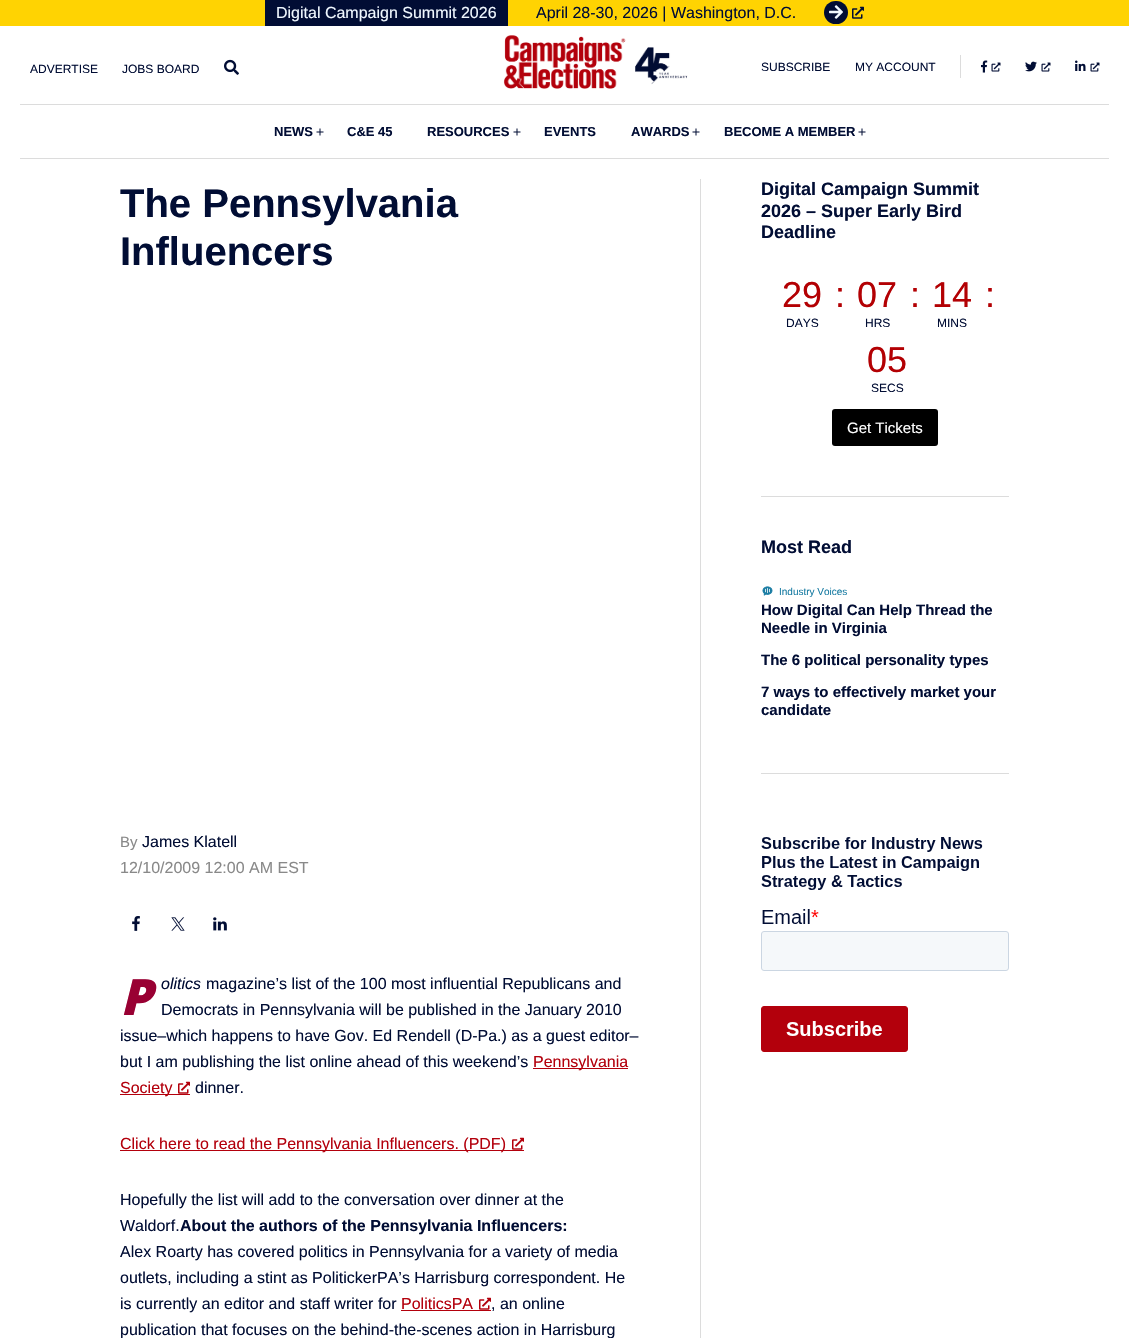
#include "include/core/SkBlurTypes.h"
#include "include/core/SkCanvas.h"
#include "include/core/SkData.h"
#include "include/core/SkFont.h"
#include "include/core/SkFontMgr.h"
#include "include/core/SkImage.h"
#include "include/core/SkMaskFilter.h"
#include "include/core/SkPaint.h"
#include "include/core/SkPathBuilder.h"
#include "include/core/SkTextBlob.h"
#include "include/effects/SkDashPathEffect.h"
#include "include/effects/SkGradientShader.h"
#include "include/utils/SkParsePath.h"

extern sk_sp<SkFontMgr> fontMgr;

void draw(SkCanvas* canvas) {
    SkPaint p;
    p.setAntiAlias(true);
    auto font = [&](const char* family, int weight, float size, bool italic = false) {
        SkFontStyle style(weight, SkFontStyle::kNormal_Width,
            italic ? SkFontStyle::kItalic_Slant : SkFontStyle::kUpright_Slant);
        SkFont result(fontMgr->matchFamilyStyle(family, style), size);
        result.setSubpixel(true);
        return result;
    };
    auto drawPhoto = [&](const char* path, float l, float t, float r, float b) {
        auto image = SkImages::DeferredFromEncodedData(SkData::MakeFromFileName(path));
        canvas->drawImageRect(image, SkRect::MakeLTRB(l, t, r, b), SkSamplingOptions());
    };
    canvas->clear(0xFFFFFFFF);
    p.setColor(0xFFFFD302);
    canvas->drawRect(SkRect::MakeLTRB(0, 0, 1129, 26), p);
    p.setColor(0xFF010D34);
    canvas->drawRect(SkRect::MakeLTRB(265, 0, 508, 26), p);
    auto font1 = font("Liberation Sans", 400, 16);
    p.setColor(0xFFF0F8FF);
    canvas->drawString("Digital Campaign Summit 2026", 276, 18, font1, p);
    p.setColor(0xFF010D34);
    canvas->drawString("April 28-30, 2026 | Washington, D.C.", 536, 18, font1, p);
    canvas->drawRoundRect(SkRect::MakeLTRB(824, 1, 848, 24), 11.5f, 11.5f, p);
    drawPhoto("media/1.png", 829, 5, 843, 19);
    drawPhoto("media/2.png", 852, 6, 864, 19);
    auto font2 = font("Liberation Sans", 400, 12);
    canvas->drawString("ADVERTISE", 30, 73, font2, p);
    canvas->drawString("JOBS BOARD", 122, 73, font2, p);
    drawPhoto("media/3.png", 224, 59, 239, 75);
    drawPhoto("media/4.png", 503, 35, 688, 89);
    canvas->drawString("SUBSCRIBE", 761, 71, font2, p);
    canvas->drawString("MY ACCOUNT", 855, 71, font2, p);
    p.setColor(0xFFDCDCDC);
    canvas->drawRect(SkRect::MakeLTRB(960, 55, 961, 78), p);
    drawPhoto("media/5.png", 981, 60, 988, 73);
    drawPhoto("media/6.png", 991, 62, 1001, 72);
    drawPhoto("media/7.png", 1025, 61, 1037, 72);
    drawPhoto("media/6.png", 1041, 62, 1051, 72);
    drawPhoto("media/8.png", 1075, 60, 1086, 71);
    drawPhoto("media/6.png", 1090, 62, 1100, 72);
    canvas->drawRect(SkRect::MakeLTRB(20, 104, 1109, 105), p);
    canvas->drawRect(SkRect::MakeLTRB(20, 158, 1109, 159), p);
    auto font3 = font("Liberation Sans", 700, 13);
    p.setColor(0xFF010D34);
    canvas->drawString("NEWS", 274, 136, font3, p);
    drawPhoto("media/9.png", 316, 128, 324, 136);
    canvas->drawString("C&E 45", 347, 136, font3, p);
    canvas->drawString("RESOURCES", 427, 136, font3, p);
    drawPhoto("media/9.png", 513, 128, 521, 136);
    canvas->drawString("EVENTS", 544, 136, font3, p);
    canvas->drawString("AWARDS", 631, 136, font3, p);
    drawPhoto("media/9.png", 692, 128, 700, 136);
    canvas->drawString("BECOME A MEMBER", 724, 136, font3, p);
    drawPhoto("media/9.png", 858, 128, 866, 136);
    p.setColor(0xFFDCDCDC);
    canvas->drawRect(SkRect::MakeLTRB(700, 179, 701, 1338), p);
    auto font4 = font("Liberation Sans", 700, 40);
    p.setColor(0xFF010D34);
    canvas->drawString("The Pennsylvania", 120, 217, font4, p);
    canvas->drawString("Influencers", 120, 265, font4, p);
    auto font5 = font("Liberation Sans", 400, 15);
    p.setColor(0xFF898989);
    canvas->drawString("By", 120, 847, font5, p);
    p.setColor(0xFF010D34);
    canvas->drawString("James Klatell", 142, 847, font1, p);
    p.setColor(0xFF898989);
    canvas->drawString("12/10/2009 12:00 AM EST", 120, 873, font1, p);
    drawPhoto("media/10.png", 132, 916, 140, 931);
    drawPhoto("media/11.png", 171, 917, 185, 931);
    drawPhoto("media/12.png", 213, 917, 227, 931);
    auto font6 = font("Noto Sans", 900, 50, true);
    p.setColor(0xFF990033);
    canvas->drawString("P", 120, 1015, font6, p);
    auto font7 = font("Liberation Sans", 400, 16, true);
    p.setColor(0xFF010D34);
    canvas->drawString("olitics", 161, 989, font7, p);
    {
        const struct { const char* s; float x, y; } items[] = {
            {"magazine’s list of the 100 most influential Republicans and", 206, 989},
            {"Democrats in Pennsylvania will be published in the January 2010", 161, 1015},
            {"issue–which happens to have Gov. Ed Rendell (D-Pa.) as a guest editor–", 120, 1041},
            {"but I am publishing the list online ahead of this weekend’s", 120, 1067},
        };
        for (auto [s, x, y] : items) {
            canvas->drawString(s, x, y, font1, p);
        }
    }
    p.setColor(0xFFB3000C);
    canvas->drawRect(SkRect::MakeLTRB(533, 1068, 628, 1069), p);
    canvas->drawString("Pennsylvania", 533, 1067, font1, p);
    canvas->drawRect(SkRect::MakeLTRB(120, 1094, 172, 1095), p);
    canvas->drawString("Society", 120, 1093, font1, p);
    canvas->drawRect(SkRect::MakeLTRB(172, 1094, 190, 1095), p);
    drawPhoto("media/13.png", 178, 1081, 190, 1094);
    p.setColor(0xFF010D34);
    canvas->drawString("dinner.", 195, 1093, font1, p);
    p.setColor(0xFFB3000C);
    canvas->drawRect(SkRect::MakeLTRB(120, 1150, 524, 1151), p);
    canvas->drawString("Click here to read the Pennsylvania Influencers. (PDF)", 120, 1149, font1, p);
    drawPhoto("media/13.png", 512, 1137, 524, 1150);
    p.setColor(0xFF010D34);
    canvas->drawString("Hopefully the list will add to the conversation over dinner at the", 120, 1205, font1, p);
    canvas->drawString("Waldorf.", 120, 1231, font1, p);
    auto font8 = font("Liberation Sans", 700, 16);
    canvas->drawString("About the authors of the Pennsylvania Influencers:", 180, 1231, font8, p);
    {
        const struct { const char* s; float x, y; } items[] = {
            {"Alex Roarty has covered politics in Pennsylvania for a variety of media", 120, 1257},
            {"outlets, including a stint as PolitickerPA’s Harrisburg correspondent. He", 120, 1283},
            {"is currently an editor and staff writer for", 120, 1309},
        };
        for (auto [s, x, y] : items) {
            canvas->drawString(s, x, y, font1, p);
        }
    }
    p.setColor(0xFFB3000C);
    canvas->drawString("PoliticsPA", 401, 1309, font1, p);
    canvas->drawRect(SkRect::MakeLTRB(401, 1310, 491, 1311), p);
    drawPhoto("media/13.png", 479, 1297, 491, 1310);
    p.setColor(0xFF010D34);
    canvas->drawString(", an online", 491, 1309, font1, p);
    canvas->drawString("publication that focuses on the behind-the-scenes action in Harrisburg", 120, 1335, font1, p);
    p.setColor(0xFFDCDCDC);
    canvas->drawRect(SkRect::MakeLTRB(761, 496, 1009, 497), p);
    auto font9 = font("Liberation Sans", 700, 18);
    p.setColor(0xFF010D34);
    {
        const struct { const char* s; float x, y; } items[] = {
            {"Digital Campaign Summit", 761, 195},
            {"2026 – Super Early Bird", 761, 217},
            {"Deadline", 761, 238},
        };
        for (auto [s, x, y] : items) {
            canvas->drawString(s, x, y, font9, p);
        }
    }
    auto font10 = font("Liberation Sans", 400, 36);
    p.setColor(0xFFB30003);
    canvas->drawString("29", 782, 307, font10, p);
    p.setColor(0xFF010D34);
    canvas->drawString("DAYS", 786, 327, font2, p);
    p.setColor(0xFFB30003);
    canvas->drawString(":", 835, 307, font10, p);
    canvas->drawString("07", 857, 307, font10, p);
    p.setColor(0xFF010D34);
    canvas->drawString("HRS", 865, 327, font2, p);
    p.setColor(0xFFB30003);
    canvas->drawString(":", 910, 307, font10, p);
    canvas->drawString("14", 932, 307, font10, p);
    p.setColor(0xFF010D34);
    canvas->drawString("MINS", 937, 327, font2, p);
    p.setColor(0xFFB30003);
    canvas->drawString(":", 985, 307, font10, p);
    canvas->drawString("05", 867, 372, font10, p);
    p.setColor(0xFF010D34);
    canvas->drawString("SECS", 871, 392, font2, p);
    p.setColor(0xFF000000);
    canvas->drawRoundRect(SkRect::MakeLTRB(832, 409, 938, 446), 3, 3, p);
    p.setColor(0xFFFFFFFF);
    canvas->drawString("Get Tickets", 847, 433, font5, p);
    p.setColor(0xFFDCDCDC);
    canvas->drawRect(SkRect::MakeLTRB(761, 773, 1009, 774), p);
    p.setColor(0xFF010D34);
    canvas->drawString("Most Read", 761, 553, font9, p);
    drawPhoto("media/14.png", 762, 586, 773, 596);
    auto font11 = font("Liberation Sans", 400, 10);
    p.setColor(0xFF197CA3);
    canvas->drawString("Industry Voices", 779, 595, font11, p);
    auto font12 = font("Liberation Sans", 700, 15);
    p.setColor(0xFF010D34);
    {
        const struct { const char* s; float x, y; } items[] = {
            {"How Digital Can Help Thread the", 761, 615},
            {"Needle in Virginia", 761, 633},
            {"The 6 political personality types", 761, 665},
            {"7 ways to effectively market your", 761, 697},
            {"candidate", 761, 715},
        };
        for (auto [s, x, y] : items) {
            canvas->drawString(s, x, y, font12, p);
        }
    }
    drawPhoto("media/15.png", 761, 837, 1009, 1052);
}
